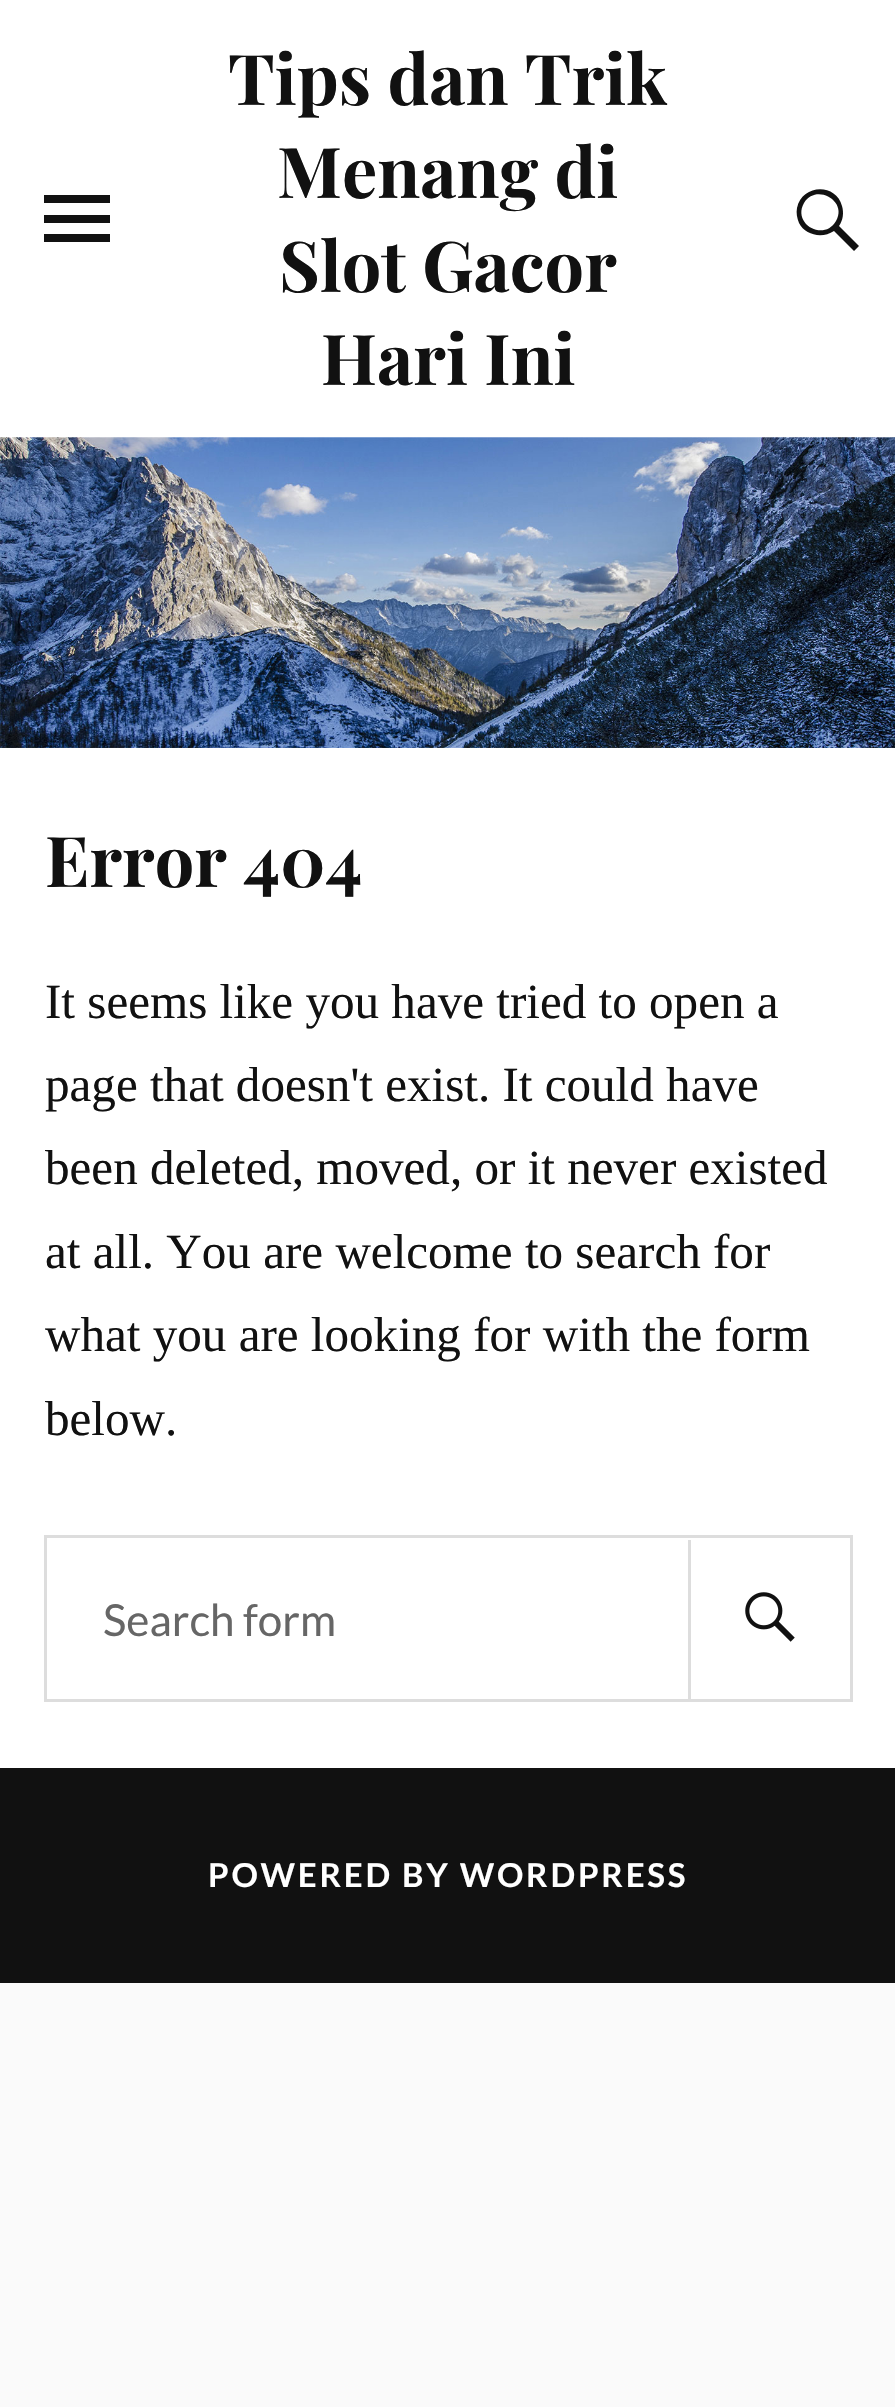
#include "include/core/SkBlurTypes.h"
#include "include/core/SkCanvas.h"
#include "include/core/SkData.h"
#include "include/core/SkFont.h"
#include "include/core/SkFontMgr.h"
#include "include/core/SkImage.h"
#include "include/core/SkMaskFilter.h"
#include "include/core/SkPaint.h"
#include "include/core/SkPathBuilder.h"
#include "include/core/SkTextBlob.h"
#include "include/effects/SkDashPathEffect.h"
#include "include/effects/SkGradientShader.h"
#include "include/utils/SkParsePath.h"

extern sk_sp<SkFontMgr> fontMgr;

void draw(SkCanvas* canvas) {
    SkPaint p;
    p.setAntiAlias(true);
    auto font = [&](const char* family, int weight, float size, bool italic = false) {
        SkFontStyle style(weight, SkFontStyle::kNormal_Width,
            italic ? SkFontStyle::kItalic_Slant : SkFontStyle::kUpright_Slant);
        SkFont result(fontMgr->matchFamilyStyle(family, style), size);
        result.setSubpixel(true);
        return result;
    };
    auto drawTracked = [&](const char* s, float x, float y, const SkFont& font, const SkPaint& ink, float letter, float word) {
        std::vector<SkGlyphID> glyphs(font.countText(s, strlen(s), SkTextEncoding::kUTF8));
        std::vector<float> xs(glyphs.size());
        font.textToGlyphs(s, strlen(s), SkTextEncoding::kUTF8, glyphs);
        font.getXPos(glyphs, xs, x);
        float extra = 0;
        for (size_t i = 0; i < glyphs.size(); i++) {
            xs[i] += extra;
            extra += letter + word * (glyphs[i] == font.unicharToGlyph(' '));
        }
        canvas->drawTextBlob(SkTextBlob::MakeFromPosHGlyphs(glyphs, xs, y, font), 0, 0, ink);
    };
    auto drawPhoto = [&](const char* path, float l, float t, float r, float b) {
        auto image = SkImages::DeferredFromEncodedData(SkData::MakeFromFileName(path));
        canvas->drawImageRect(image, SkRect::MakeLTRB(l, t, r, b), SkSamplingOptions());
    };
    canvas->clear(0xFFFAFAFA);
    p.setColor(0xFFFFFFFF);
    canvas->drawRect(SkRect::MakeLTRB(0, 0, 895, 437), p);
    auto font1 = font("Playfair Display", 700, 70);
    p.setColor(0xFF111111);
    {
        const struct { const char* s; float x, y; } items[] = {
            {"Tips dan Trik", 228, 105},
            {"Menang di", 277, 198},
            {"Slot Gacor", 279, 292},
            {"Hari Ini", 321, 385},
        };
        for (auto [s, x, y] : items) {
            canvas->drawString(s, x, y, font1, p);
        }
    }
    {
        const struct { float l, t, r, b; SkColor color; } items[] = {
            {44, 195, 110, 203, 0xFF111111},
            {44, 215, 110, 223, 0xFF111111},
            {44, 234, 110, 242, 0xFF111111},
        };
        for (auto [l, t, r, b, color] : items) {
            p.setColor(color);
            canvas->drawRect(SkRect::MakeLTRB(l, t, r, b), p);
        }
    }
    canvas->drawPath(SkPathBuilder().moveTo(859, 246).lineTo(854, 251).lineTo(834, 231).cubicTo(822, 239, 805, 235, 799, 223).cubicTo(797, 218, 796, 213, 797, 208).cubicTo(802, 184, 836, 183, 842, 206).cubicTo(844, 213, 843, 220, 839, 226).close().moveTo(804, 203).cubicTo(792, 224, 824, 242, 836, 221).cubicTo(848, 201, 816, 183, 804, 203).close().detach(), p);
    drawPhoto("media/1.png", 0, 437, 895, 748);
    p.setColor(0xFFFFFFFF);
    canvas->drawRect(SkRect::MakeLTRB(0, 748, 895, 1768), p);
    p.setColor(0xFF111111);
    canvas->drawString("Error 404", 45, 887, font1, p);
    auto font2 = font("Liberation Serif", 400, 49.1f);
    {
        const struct { const char* s; float x, y; } items[] = {
            {"It seems like you have tried to open a", 45, 1018},
            {"page that doesn't exist. It could have", 45, 1101},
            {"been deleted, moved, or it never existed", 45, 1184},
            {"at all. You are welcome to search for", 45, 1268},
            {"what you are looking for with the form", 45, 1351},
            {"below.", 45, 1435},
        };
        for (auto [s, x, y] : items) {
            canvas->drawString(s, x, y, font2, p);
        }
    }
    p.setStyle(SkPaint::kStroke_Style);
    p.setStrokeWidth(3);
    p.setColor(0xFFDDDDDD);
    canvas->drawRect(SkRect::MakeLTRB(45.5f, 1536.5f, 851.5f, 1700.5f), p);
    auto font3 = font("Lato", 400, 44);
    p.setStyle(SkPaint::kFill_Style);
    p.setColor(0xFF666666);
    canvas->drawString("Search form", 103, 1636, font3, p);
    p.setColor(0xFFDDDDDD);
    canvas->drawRect(SkRect::MakeLTRB(688, 1540, 691, 1700), p);
    drawPhoto("media/2.png", 745, 1592, 795, 1642);
    p.setColor(0xFF111111);
    canvas->drawRect(SkRect::MakeLTRB(0, 1768, 895, 1983), p);
    auto font4 = font("Lato", 700, 33);
    p.setColor(0xFFFFFFFF);
    drawTracked("POWERED BY WORDPRESS", 208, 1887, font4, p, 2.75f, 0);
}
